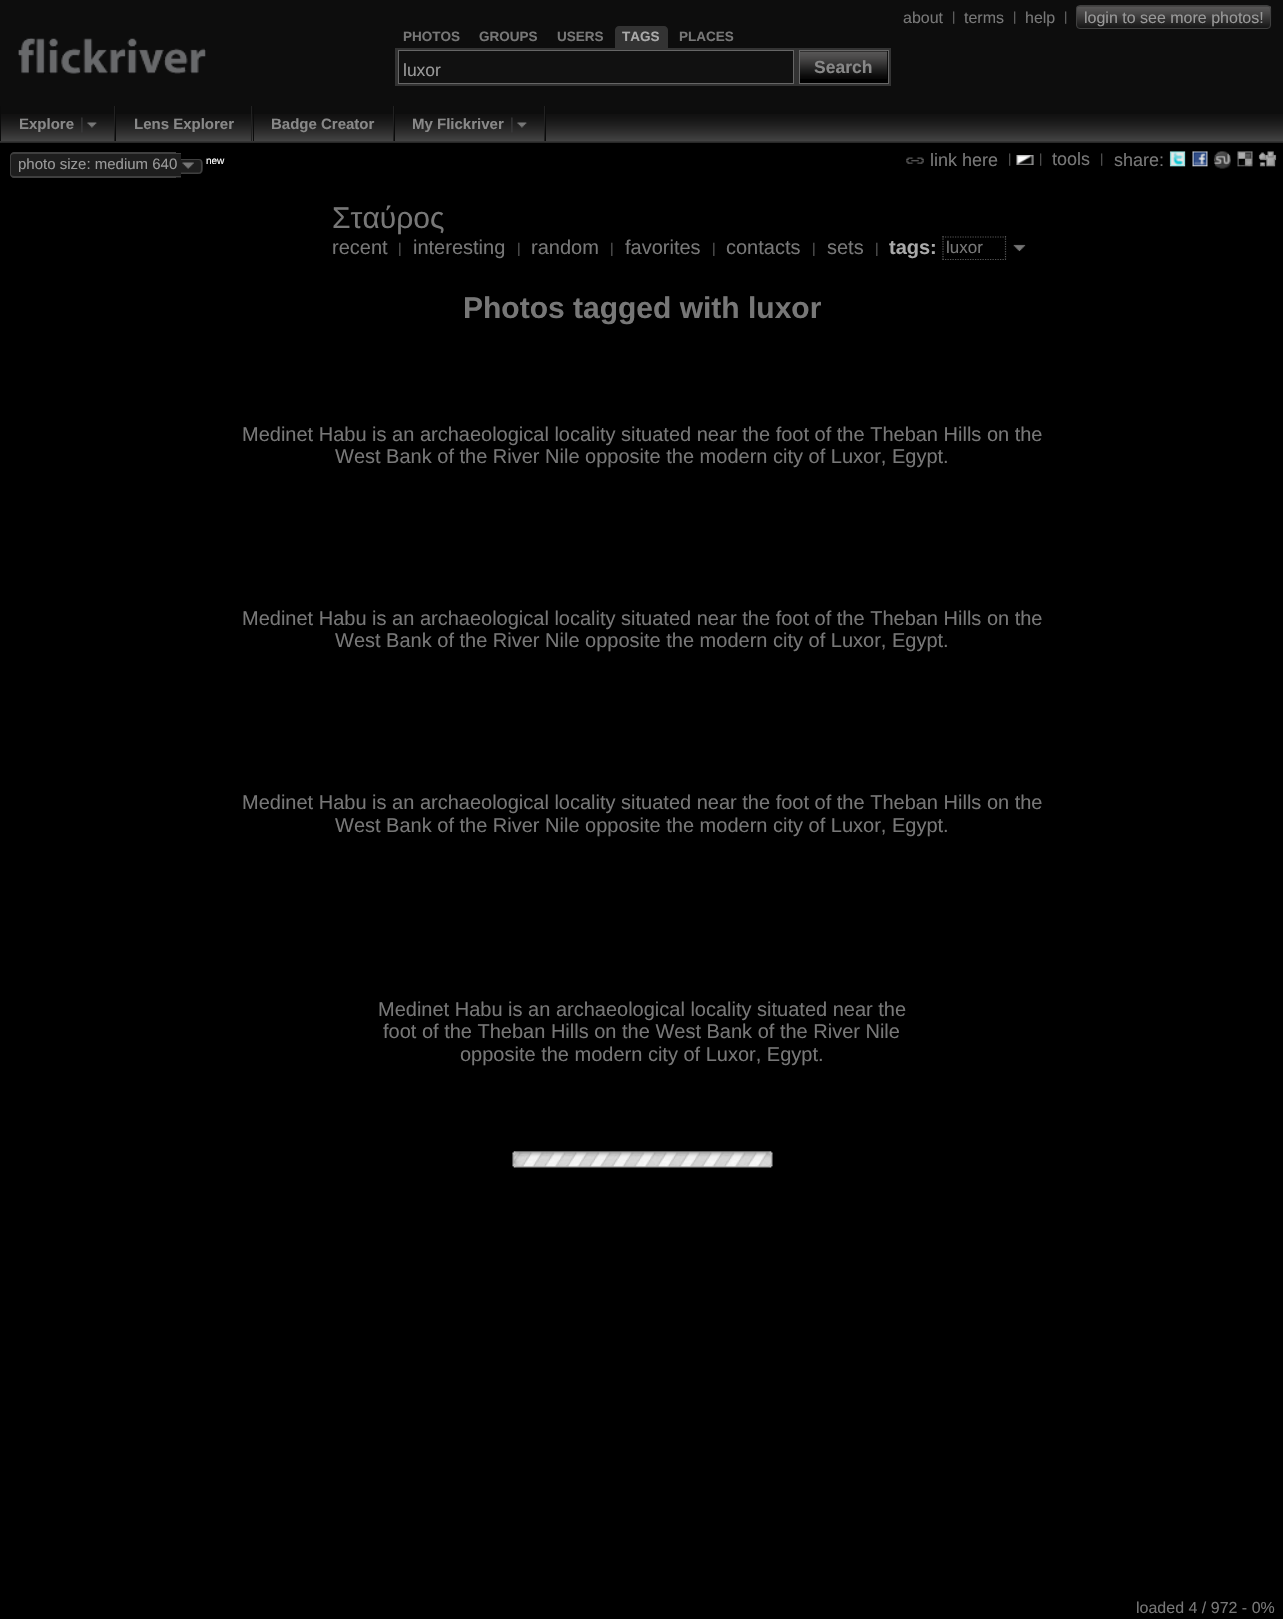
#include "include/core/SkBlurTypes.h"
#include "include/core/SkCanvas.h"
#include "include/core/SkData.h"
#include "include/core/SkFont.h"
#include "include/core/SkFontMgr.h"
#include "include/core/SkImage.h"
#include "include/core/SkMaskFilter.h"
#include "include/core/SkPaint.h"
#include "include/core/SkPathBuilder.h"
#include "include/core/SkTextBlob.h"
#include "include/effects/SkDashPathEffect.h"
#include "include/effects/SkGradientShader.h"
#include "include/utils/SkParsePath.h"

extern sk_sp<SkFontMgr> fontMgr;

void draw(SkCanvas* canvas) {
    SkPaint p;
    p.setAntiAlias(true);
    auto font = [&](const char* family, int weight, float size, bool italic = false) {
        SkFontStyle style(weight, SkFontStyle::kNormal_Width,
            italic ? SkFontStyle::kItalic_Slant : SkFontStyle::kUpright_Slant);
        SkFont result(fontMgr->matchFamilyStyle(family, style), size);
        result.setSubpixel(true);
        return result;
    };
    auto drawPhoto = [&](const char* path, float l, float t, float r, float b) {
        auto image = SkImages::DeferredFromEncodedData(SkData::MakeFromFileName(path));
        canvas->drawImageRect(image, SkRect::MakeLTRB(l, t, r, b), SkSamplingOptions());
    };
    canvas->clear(0xFF000000);
    p.setColor(0xFF0D0D0D);
    canvas->drawRect(SkRect::MakeLTRB(0, 0, 1283, 143), p);
    auto font1 = font("Liberation Sans", 400, 16);
    p.setColor(0xFF777777);
    canvas->drawString("about", 903, 23, font1, p);
    auto font2 = font("Liberation Sans", 400, 13);
    p.setColor(0xFF666666);
    canvas->drawString("|", 952, 21, font2, p);
    canvas->drawString("|", 1013, 21, font2, p);
    p.setColor(0xFF777777);
    canvas->drawString("help", 1025, 23, font1, p);
    p.setColor(0xFF666666);
    canvas->drawString("|", 1064, 21, font2, p);
    drawPhoto("media/1.png", 1076, 6, 1272, 29);
    p.setColor(0xFF777777);
    canvas->drawString("terms", 964, 23, font1, p);
    p.setStyle(SkPaint::kStroke_Style);
    p.setStrokeWidth(1);
    p.setColor(0xFF3F3F3F);
    canvas->drawRoundRect(SkRect::MakeLTRB(1076.5f, 5.5f, 1270.5f, 28.5f), 3.5f, 3.5f, p);
    p.setStyle(SkPaint::kFill_Style);
    p.setColor(0xFF999999);
    canvas->drawString("login to see more photos!", 1084, 23, font1, p);
    drawPhoto("media/2.png", 18, 38, 206, 74);
    auto font3 = font("Liberation Sans", 700, 13.5f);
    p.setColor(0xFF777777);
    {
        const struct { const char* s; float x, y; } items[] = {
            {"PHOTOS", 403, 41},
            {"GROUPS", 479, 41},
            {"USERS", 557, 41},
        };
        for (auto [s, x, y] : items) {
            canvas->drawString(s, x, y, font3, p);
        }
    }
    p.setColor(0xFF333333);
    canvas->drawPath(SkPathBuilder().moveTo(619, 26).lineTo(664, 26).cubicTo(666, 26, 668, 28, 668, 30).lineTo(668, 48).lineTo(615, 48).lineTo(615, 30).cubicTo(615, 28, 617, 26, 619, 26).close().detach(), p);
    p.setColor(0xFFAAAAAA);
    canvas->drawString("TAGS", 622, 41, font3, p);
    p.setColor(0xFF777777);
    canvas->drawString("PLACES", 679, 41, font3, p);
    p.setColor(0xFF333333);
    canvas->drawRect(SkRect::MakeLTRB(395, 48, 891, 86), p);
    p.setColor(0xFF111111);
    canvas->drawRect(SkRect::MakeLTRB(398.5f, 50.5f, 793.5f, 83.5f), p);
    p.setStyle(SkPaint::kStroke_Style);
    p.setColor(0xFF666666);
    canvas->drawRect(SkRect::MakeLTRB(398.5f, 50.5f, 793.5f, 83.5f), p);
    auto font4 = font("Liberation Sans", 400, 17.5f);
    p.setStyle(SkPaint::kFill_Style);
    p.setColor(0xFF999999);
    canvas->drawString("luxor", 403, 76, font4, p);
    p.setColor(0xFF000000);
    canvas->drawRect(SkRect::MakeLTRB(799.5f, 50.5f, 888.5f, 83.5f), p);
    p.setStyle(SkPaint::kStroke_Style);
    p.setColor(0xFF666666);
    canvas->drawRect(SkRect::MakeLTRB(799.5f, 50.5f, 888.5f, 83.5f), p);
    drawPhoto("media/3.png", 800, 51, 888, 79);
    auto font5 = font("Liberation Sans", 700, 17.5f);
    p.setStyle(SkPaint::kFill_Style);
    p.setColor(0xFF888888);
    canvas->drawString("Search", 814, 73, font5, p);
    drawPhoto("media/4.png", 0, 114, 1283, 143);
    {
        const struct { float l, t, r, b; SkColor color; } items[] = {
            {0, 141, 1283, 142, 0xFF333333},
            {545, 106, 546, 141, 0xFF0B0B0B},
            {114, 106, 115, 141, 0xFF212121},
            {0, 106, 1, 141, 0xFF0B0B0B},
        };
        for (auto [l, t, r, b, color] : items) {
            p.setColor(color);
            canvas->drawRect(SkRect::MakeLTRB(l, t, r, b), p);
        }
    }
    auto font6 = font("Liberation Sans", 700, 15);
    p.setColor(0xFF888888);
    canvas->drawString("Explore", 19, 129, font6, p);
    drawPhoto("media/5.png", 81, 117, 97, 133);
    p.setColor(0xFF212121);
    canvas->drawRect(SkRect::MakeLTRB(251, 106, 252, 141), p);
    p.setColor(0xFF0B0B0B);
    canvas->drawRect(SkRect::MakeLTRB(115, 106, 116, 141), p);
    p.setColor(0xFF888888);
    canvas->drawString("Lens Explorer", 134, 129, font6, p);
    p.setColor(0xFF212121);
    canvas->drawRect(SkRect::MakeLTRB(393, 106, 394, 141), p);
    p.setColor(0xFF0B0B0B);
    canvas->drawRect(SkRect::MakeLTRB(253, 106, 254, 141), p);
    p.setColor(0xFF888888);
    canvas->drawString("Badge Creator", 271, 129, font6, p);
    p.setColor(0xFF212121);
    canvas->drawRect(SkRect::MakeLTRB(544, 106, 545, 141), p);
    p.setColor(0xFF0B0B0B);
    canvas->drawRect(SkRect::MakeLTRB(394, 106, 395, 141), p);
    p.setColor(0xFF888888);
    canvas->drawString("My Flickriver", 412, 129, font6, p);
    drawPhoto("media/5.png", 511, 117, 527, 133);
    p.setColor(0xFF1E1E1E);
    canvas->drawPath(SkPathBuilder().moveTo(14, 153).lineTo(176, 153).lineTo(176, 178).lineTo(14, 178).cubicTo(12, 178, 10, 176, 10, 174).lineTo(10, 157).cubicTo(10, 155, 12, 153, 14, 153).close().detach(), p);
    p.setColor(0xFF3F3F3F);
    canvas->drawPath(SkPathBuilder(SkPathFillType::kEvenOdd).moveTo(14, 152).lineTo(176, 152).lineTo(176, 178).lineTo(14, 178).cubicTo(12, 178, 10, 176, 10, 174).lineTo(10, 156).cubicTo(10, 154, 12, 152, 14, 152).close().moveTo(14, 154).lineTo(176, 154).lineTo(176, 176).lineTo(14, 176).cubicTo(12, 176, 11, 175, 11, 174).lineTo(11, 156).cubicTo(11, 155, 12, 154, 14, 154).close().detach(), p);
    p.setColor(0xFF1E1E1E);
    canvas->drawRect(SkRect::MakeLTRB(176, 153, 181, 178), p);
    auto font7 = font("Liberation Sans", 400, 15);
    p.setColor(0xFF999999);
    canvas->drawString("photo size: medium 640", 18, 169, font7, p);
    p.setColor(0xFF3F3F3F);
    canvas->drawRect(SkRect::MakeLTRB(176, 153, 181, 154), p);
    canvas->drawRect(SkRect::MakeLTRB(176, 176, 181, 177), p);
    p.setColor(0xFF1E1E1E);
    canvas->drawPath(SkPathBuilder().moveTo(181, 159).lineTo(199, 159).cubicTo(201, 159, 203, 161, 203, 163).lineTo(203, 170).cubicTo(203, 172, 201, 174, 199, 174).lineTo(181, 174).close().detach(), p);
    p.setColor(0xFF3F3F3F);
    canvas->drawPath(SkPathBuilder(SkPathFillType::kEvenOdd).moveTo(181, 159).lineTo(193, 159).cubicTo(201.5f, 159, 202.5f, 158, 202.5f, 166).cubicTo(202.5f, 174.5f, 201.5f, 174, 193, 174).lineTo(181, 174).close().moveTo(181, 160).lineTo(193, 160).cubicTo(200.5f, 160, 201, 158.5f, 201, 166).cubicTo(201, 174, 200.5f, 172.5f, 193, 172.5f).lineTo(181, 172.5f).close().detach(), p);
    drawPhoto("media/6.png", 182, 162, 194, 169);
    auto font8 = font("Liberation Sans", 400, 10);
    p.setColor(0xFFFFFFFF);
    canvas->drawString("new", 206, 164, font8, p);
    drawPhoto("media/7.png", 906, 157, 924, 164);
    auto font9 = font("Liberation Sans", 400, 18);
    p.setColor(0xFF777777);
    canvas->drawString("link here", 930, 166, font9, p);
    p.setColor(0xFF555555);
    canvas->drawString("|", 1008, 163, font2, p);
    drawPhoto("media/8.png", 1016, 155, 1034, 165);
    canvas->drawString("|", 1039, 163, font2, p);
    p.setColor(0xFF777777);
    canvas->drawString("tools", 1052, 165, font9, p);
    p.setColor(0xFF555555);
    canvas->drawString("|", 1100, 163, font2, p);
    p.setColor(0xFF777777);
    canvas->drawString("share:", 1114, 166, font9, p);
    drawPhoto("media/9.png", 1169, 151, 1186, 167);
    drawPhoto("media/10.png", 1192, 151, 1208, 167);
    drawPhoto("media/11.png", 1213, 151, 1231, 169);
    drawPhoto("media/12.png", 1237, 151, 1253, 167);
    drawPhoto("media/13.png", 1258, 151, 1277, 167);
    auto font10 = font("Liberation Sans", 400, 30);
    canvas->drawString("Σταύρος", 332, 228, font10, p);
    auto font11 = font("Liberation Sans", 400, 20);
    canvas->drawString("recent", 332, 254, font11, p);
    auto font12 = font("Liberation Sans", 400, 14);
    p.setColor(0xFF555555);
    canvas->drawString("|", 398, 253, font12, p);
    p.setColor(0xFF777777);
    canvas->drawString("interesting", 413, 254, font11, p);
    p.setColor(0xFF555555);
    canvas->drawString("|", 517, 253, font12, p);
    p.setColor(0xFF777777);
    canvas->drawString("random", 531, 254, font11, p);
    p.setColor(0xFF555555);
    canvas->drawString("|", 610, 253, font12, p);
    p.setColor(0xFF777777);
    canvas->drawString("favorites", 625, 254, font11, p);
    p.setColor(0xFF555555);
    canvas->drawString("|", 712, 253, font12, p);
    p.setColor(0xFF777777);
    canvas->drawString("contacts", 726, 254, font11, p);
    p.setColor(0xFF555555);
    canvas->drawString("|", 812, 253, font12, p);
    p.setColor(0xFF777777);
    canvas->drawString("sets", 827, 254, font11, p);
    p.setColor(0xFF555555);
    canvas->drawString("|", 875, 253, font12, p);
    auto font13 = font("Liberation Sans", 700, 20);
    p.setColor(0xFFAAAAAA);
    canvas->drawString("tags:", 889, 254, font13, p);
    p.setStyle(SkPaint::kStroke_Style);
    p.setStrokeWidth(1.2f);
    p.setColor(0xFF555555);
    p.setPathEffect(SkDashPathEffect::Make({{1.25f, 1.25f}}, 0));
    canvas->drawPath(SkPathBuilder().moveTo(942.5f, 237).lineTo(1006, 237).detach(), p);
    p.setPathEffect(nullptr);
    p.setPathEffect(SkDashPathEffect::Make({{1.25f, 1.25f}}, 0));
    canvas->drawPath(SkPathBuilder().moveTo(1005.5f, 236).lineTo(1005.5f, 260).detach(), p);
    p.setPathEffect(nullptr);
    p.setPathEffect(SkDashPathEffect::Make({{1.25f, 1.25f}}, 0));
    canvas->drawPath(SkPathBuilder().moveTo(942.5f, 259.5f).lineTo(1006, 259.5f).detach(), p);
    p.setPathEffect(nullptr);
    p.setPathEffect(SkDashPathEffect::Make({{1.25f, 1.25f}}, 0));
    canvas->drawPath(SkPathBuilder().moveTo(943, 236).lineTo(943, 260).detach(), p);
    p.setPathEffect(nullptr);
    auto font14 = font("Liberation Sans", 400, 17);
    p.setStyle(SkPaint::kFill_Style);
    p.setColor(0xFF777777);
    canvas->drawString("luxor", 946, 253, font14, p);
    drawPhoto("media/14.png", 1013, 244, 1026, 252);
    auto font15 = font("Liberation Sans", 700, 30);
    canvas->drawString("Photos tagged with luxor", 463, 318, font15, p);
    {
        const struct { const char* s; float x, y; } items[] = {
            {"Medinet Habu is an archaeological locality situated near the foot of the Theban Hills on the", 242, 441},
            {"West Bank of the River Nile opposite the modern city of Luxor, Egypt.", 335, 463},
            {"Medinet Habu is an archaeological locality situated near the foot of the Theban Hills on the", 242, 625},
            {"West Bank of the River Nile opposite the modern city of Luxor, Egypt.", 335, 647},
            {"Medinet Habu is an archaeological locality situated near the foot of the Theban Hills on the", 242, 809},
            {"West Bank of the River Nile opposite the modern city of Luxor, Egypt.", 335, 832},
            {"Medinet Habu is an archaeological locality situated near the", 378, 1016},
            {"foot of the Theban Hills on the West Bank of the River Nile", 383, 1038},
            {"opposite the modern city of Luxor, Egypt.", 460, 1061},
        };
        for (auto [s, x, y] : items) {
            canvas->drawString(s, x, y, font11, p);
        }
    }
    drawPhoto("media/15.png", 512, 1151, 773, 1168);
    canvas->drawString("loaded 4 / 972 - 0%", 1136, 1613, font1, p);
}
